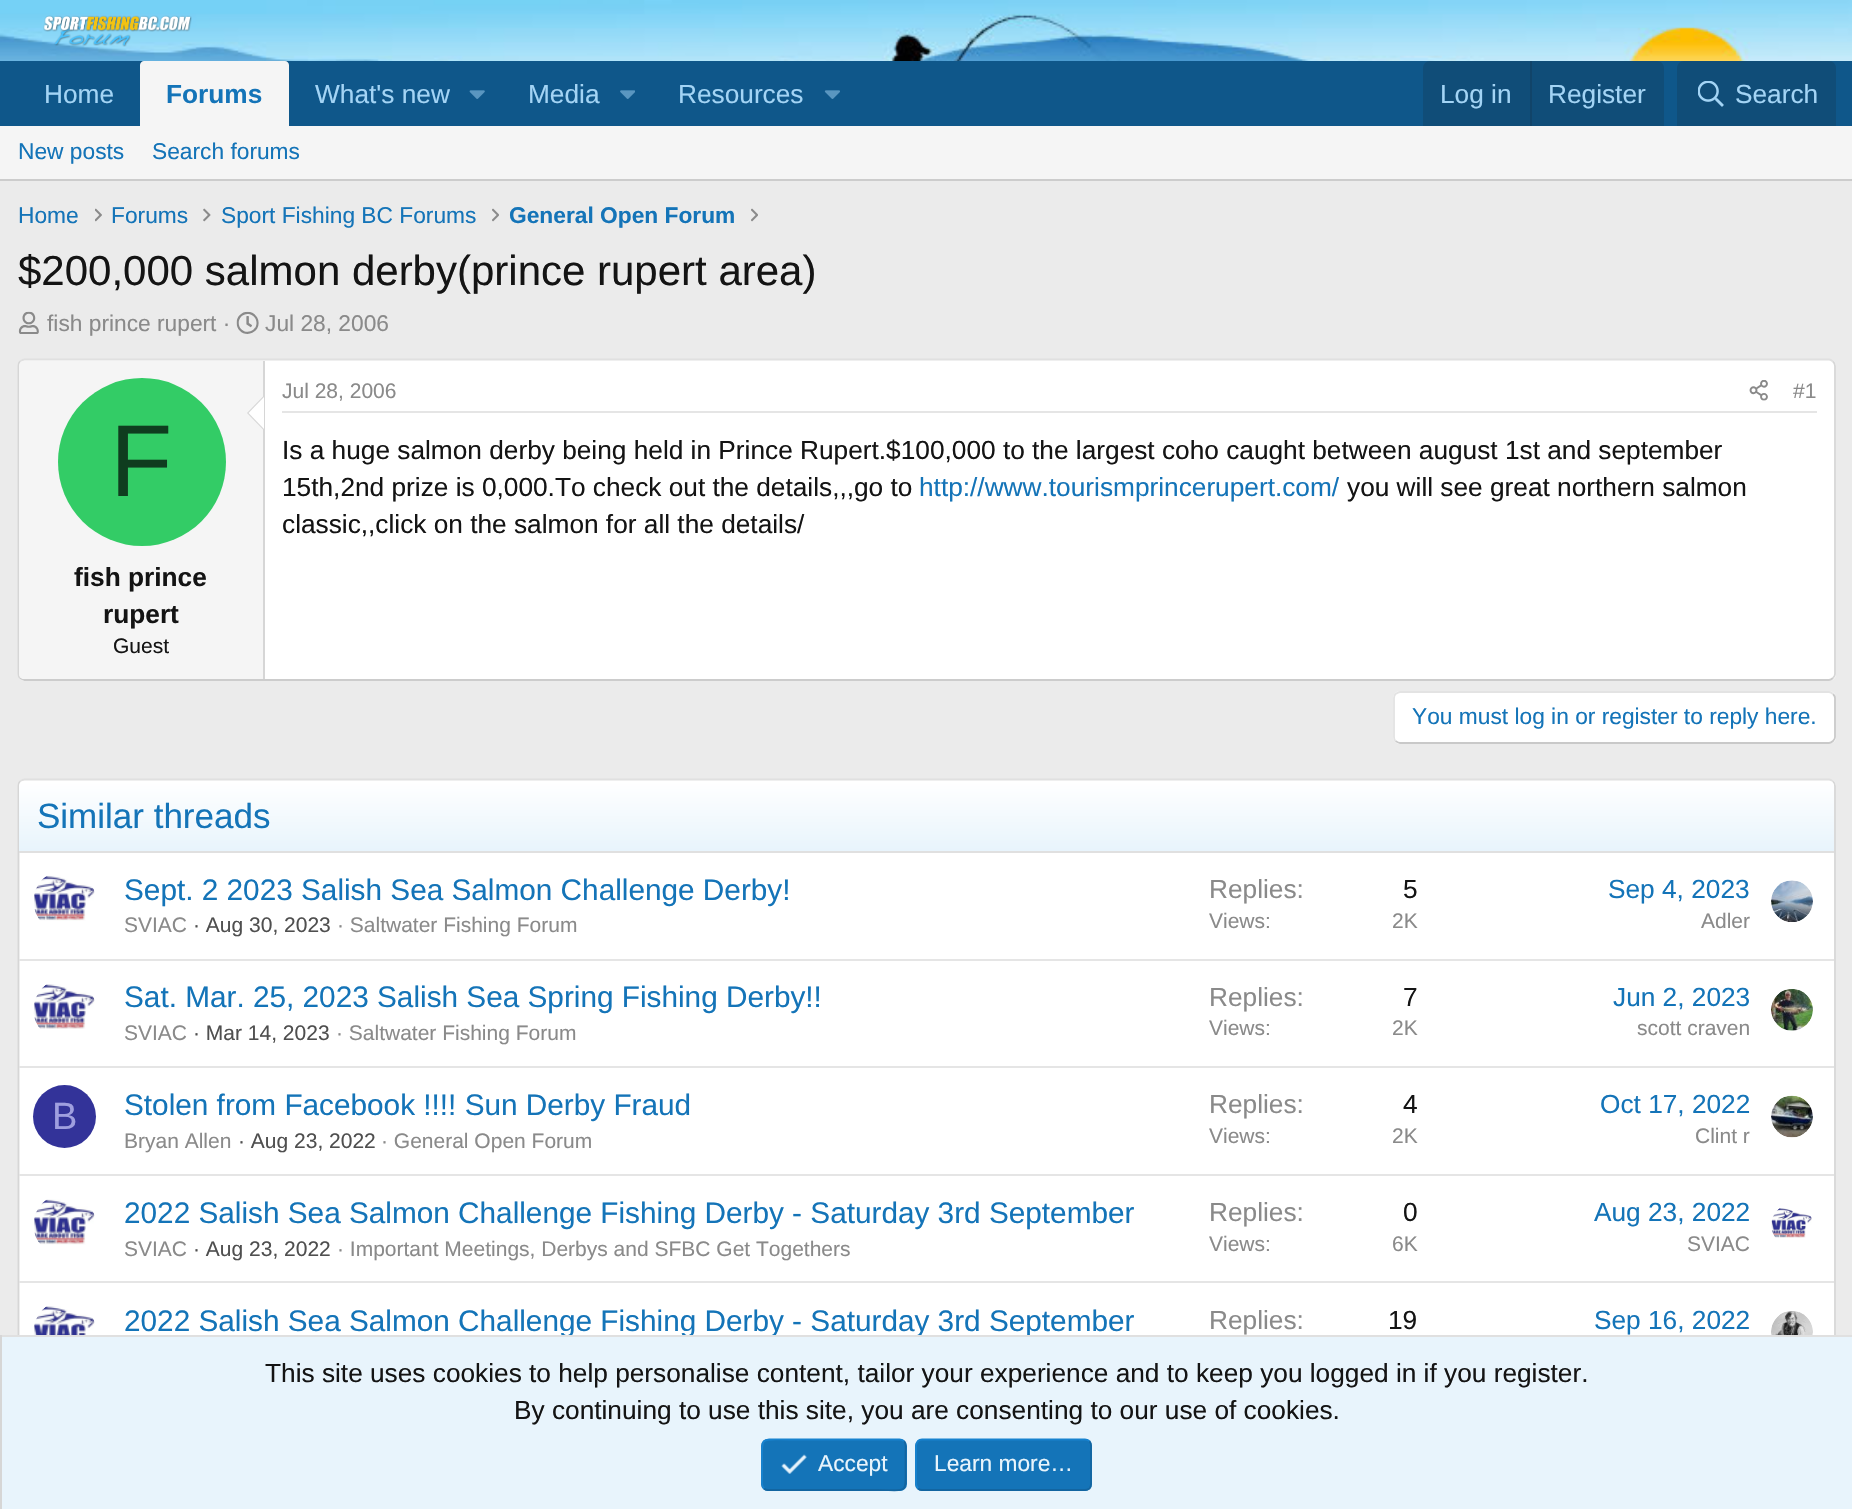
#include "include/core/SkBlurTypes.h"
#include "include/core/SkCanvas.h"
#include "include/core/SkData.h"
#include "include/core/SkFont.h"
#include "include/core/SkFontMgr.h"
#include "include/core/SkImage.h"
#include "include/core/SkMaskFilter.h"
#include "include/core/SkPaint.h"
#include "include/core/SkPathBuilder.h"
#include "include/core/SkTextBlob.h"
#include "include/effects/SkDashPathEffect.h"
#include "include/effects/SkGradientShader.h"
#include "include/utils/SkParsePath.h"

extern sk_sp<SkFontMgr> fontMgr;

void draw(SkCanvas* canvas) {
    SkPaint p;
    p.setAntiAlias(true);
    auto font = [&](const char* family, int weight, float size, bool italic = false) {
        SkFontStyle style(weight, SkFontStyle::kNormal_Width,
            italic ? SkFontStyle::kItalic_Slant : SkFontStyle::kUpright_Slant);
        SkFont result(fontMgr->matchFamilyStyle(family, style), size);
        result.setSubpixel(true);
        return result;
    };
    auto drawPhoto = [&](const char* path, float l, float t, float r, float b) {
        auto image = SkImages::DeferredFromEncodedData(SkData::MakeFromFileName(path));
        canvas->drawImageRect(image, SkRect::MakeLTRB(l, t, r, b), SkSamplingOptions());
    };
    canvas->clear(0xFFEBEBEB);
    drawPhoto("media/1.png", 0, 0, 1852, 61);
    drawPhoto("media/2.png", 43, 15, 192, 47);
    p.setColor(0xFF0F578A);
    canvas->drawRect(SkRect::MakeLTRB(0, 61, 1852, 126), p);
    auto font1 = font("Liberation Sans", 400, 26.25f);
    p.setColor(0xFFA3D4F5);
    canvas->drawString("Home", 44, 103, font1, p);
    p.setColor(0xFFF5F5F5);
    canvas->drawPath(SkPathBuilder().moveTo(144, 61).lineTo(285, 61).cubicTo(287, 61, 289, 63, 289, 65).lineTo(289, 126).lineTo(140, 126).lineTo(140, 65).cubicTo(140, 63, 142, 61, 144, 61).close().detach(), p);
    auto font2 = font("Liberation Sans", 700, 26.25f);
    p.setColor(0xFF1474B8);
    canvas->drawString("Forums", 166, 103, font2, p);
    p.setColor(0xFFA3D4F5);
    canvas->drawString("What's new", 315, 103, font1, p);
    drawPhoto("media/3.png", 469, 90, 485, 99);
    canvas->drawString("Media", 528, 103, font1, p);
    drawPhoto("media/4.png", 620, 90, 635, 99);
    canvas->drawString("Resources", 678, 103, font1, p);
    drawPhoto("media/5.png", 824, 90, 840, 99);
    p.setColor(0xFF104D78);
    canvas->drawPath(SkPathBuilder().moveTo(1430, 61).lineTo(1657, 61).cubicTo(1661, 61, 1664, 64, 1664, 68).lineTo(1664, 126).lineTo(1423, 126).lineTo(1423, 68).cubicTo(1423, 64, 1426, 61, 1430, 61).close().detach(), p);
    p.setColor(0xFFA3D4F5);
    canvas->drawString("Log in", 1440, 103, font1, p);
    p.setColor(0xFF114469);
    canvas->drawRect(SkRect::MakeLTRB(1530, 61, 1532, 126), p);
    p.setColor(0xFFA3D4F5);
    canvas->drawString("Register", 1548, 103, font1, p);
    p.setColor(0xFF104D78);
    canvas->drawPath(SkPathBuilder().moveTo(1684, 61).lineTo(1829, 61).cubicTo(1833, 61, 1836, 64, 1836, 68).lineTo(1836, 126).lineTo(1677, 126).lineTo(1677, 68).cubicTo(1677, 64, 1680, 61, 1684, 61).close().detach(), p);
    drawPhoto("media/6.png", 1698, 81, 1724, 107);
    p.setColor(0xFFA3D4F5);
    canvas->drawString("Search", 1735, 103, font1, p);
    p.setColor(0xFFF5F5F5);
    canvas->drawRect(SkRect::MakeLTRB(0, 126, 1852, 179), p);
    p.setColor(0xFFCCCCCC);
    canvas->drawRect(SkRect::MakeLTRB(0, 179, 1852, 181), p);
    auto font3 = font("Liberation Sans", 400, 22.75f);
    p.setColor(0xFF1474B8);
    {
        const struct { const char* s; float x, y; } items[] = {
            {"New posts", 18, 159},
            {"Search forums", 152, 159},
            {"Home", 18, 223},
        };
        for (auto [s, x, y] : items) {
            canvas->drawString(s, x, y, font3, p);
        }
    }
    drawPhoto("media/7.png", 95, 208, 102, 222);
    canvas->drawString("Forums", 111, 223, font3, p);
    drawPhoto("media/8.png", 203, 208, 211, 222);
    canvas->drawString("Sport Fishing BC Forums", 221, 223, font3, p);
    drawPhoto("media/9.png", 492, 208, 499, 222);
    auto font4 = font("Liberation Sans", 700, 22.75f);
    canvas->drawString("General Open Forum", 509, 223, font4, p);
    drawPhoto("media/9.png", 751, 208, 758, 222);
    auto font5 = font("Liberation Sans", 400, 42);
    p.setColor(0xFF141414);
    canvas->drawString("$200,000 salmon derby(prince rupert area)", 18, 285, font5, p);
    drawPhoto("media/10.png", 18, 311, 39, 334);
    p.setColor(0xFF8A8A8A);
    canvas->drawString("fish prince rupert ·", 47, 331, font3, p);
    drawPhoto("media/11.png", 236, 311, 259, 334);
    canvas->drawString("Jul 28, 2006", 265, 331, font3, p);
    p.setColor(0xFFFFFFFF);
    canvas->drawRoundRect(SkRect::MakeLTRB(18, 359, 1836, 681), 7, 7, p);
    p.setStyle(SkPaint::kStroke_Style);
    p.setStrokeWidth(1.8f);
    p.setColor(0xFFE0E0E0);
    canvas->drawPath(SkPathBuilder().moveTo(20, 361.5f).cubicTo(21.5f, 360.5f, 23, 359.5f, 24.5f, 359.5f).lineTo(1829, 359.5f).cubicTo(1830.5f, 359.5f, 1832, 360.5f, 1833, 361.5f).detach(), p);
    p.setColor(0xFFD6D6D6);
    canvas->drawPath(SkPathBuilder().moveTo(1833, 361.5f).cubicTo(1834, 362.5f, 1835, 364, 1835, 366).lineTo(1835, 674).cubicTo(1835, 675.5f, 1834, 677, 1833, 678).detach(), p);
    p.setColor(0xFFCCCCCC);
    canvas->drawPath(SkPathBuilder().moveTo(1833, 678).cubicTo(1832, 679, 1830.5f, 680, 1829, 680).lineTo(24.5f, 680).cubicTo(23, 680, 21.5f, 679, 20, 678).detach(), p);
    p.setColor(0xFFD6D6D6);
    canvas->drawPath(SkPathBuilder().moveTo(20, 678).cubicTo(19, 677, 18.5f, 675.5f, 18.5f, 674).lineTo(18.5f, 366).cubicTo(18.5f, 364, 19, 362.5f, 20, 361.5f).detach(), p);
    p.setStyle(SkPaint::kFill_Style);
    p.setColor(0xFFF5F5F5);
    canvas->drawPath(SkPathBuilder().moveTo(24, 361).lineTo(264, 361).lineTo(264, 679).lineTo(24, 679).cubicTo(21, 679, 19, 677, 19, 674).lineTo(19, 366).cubicTo(19, 363, 21, 361, 24, 361).close().detach(), p);
    p.setColor(0xFFD6D6D6);
    canvas->drawRect(SkRect::MakeLTRB(263, 361, 265, 679), p);
    canvas->drawPath(SkPathBuilder().moveTo(264, 395.5f).lineTo(264, 430.5f).lineTo(247, 413).close().detach(), p);
    p.setColor(0xFFFFFFFF);
    canvas->drawPath(SkPathBuilder().moveTo(264, 397).lineTo(264, 429).lineTo(248.5f, 413).close().detach(), p);
    p.setColor(0xFF33CC66);
    canvas->drawCircle(142, 462, 84, p);
    auto font6 = font("Liberation Sans", 400, 102);
    p.setColor(0xFF0F3D1F);
    canvas->drawString("F", 110, 496, font6, p);
    p.setColor(0xFF141414);
    canvas->drawString("fish prince", 74, 586, font2, p);
    canvas->drawString("rupert", 103, 623, font2, p);
    auto font7 = font("Liberation Sans", 400, 21);
    canvas->drawString("Guest", 113, 653, font7, p);
    p.setColor(0xFFE5E5E5);
    canvas->drawRect(SkRect::MakeLTRB(282, 411, 1817, 413), p);
    p.setColor(0xFF8A8A8A);
    canvas->drawString("Jul 28, 2006", 282, 398, font7, p);
    drawPhoto("media/12.png", 1749, 380, 1768, 401);
    canvas->drawString("#1", 1793, 398, font7, p);
    p.setColor(0xFF141414);
    canvas->drawString("Is a huge salmon derby being held in Prince Rupert.$100,000 to the largest coho caught between august 1st and september", 282, 459, font1, p);
    canvas->drawString("15th,2nd prize is 0,000.To check out the details,,,go to", 282, 496, font1, p);
    p.setColor(0xFF1474B8);
    canvas->drawString("http://www.tourismprincerupert.com/", 919, 496, font1, p);
    p.setColor(0xFF141414);
    canvas->drawString("you will see great northern salmon", 1347, 496, font1, p);
    canvas->drawString("classic,,click on the salmon for all the details/", 282, 533, font1, p);
    p.setColor(0xFFFFFFFF);
    canvas->drawRoundRect(SkRect::MakeLTRB(1393, 691, 1836, 744), 7, 7, p);
    p.setStyle(SkPaint::kStroke_Style);
    p.setColor(0xFFC9C9C9);
    canvas->drawPath(SkPathBuilder().moveTo(1833, 694).cubicTo(1834, 695, 1835, 696.5f, 1835, 698).lineTo(1835, 737).cubicTo(1835, 738.5f, 1834, 740, 1833, 741).cubicTo(1832, 742, 1830.5f, 743, 1829, 743).lineTo(1400, 743).cubicTo(1398.5f, 743, 1397, 742, 1395.5f, 741).detach(), p);
    p.setColor(0xFFE3E3E3);
    canvas->drawPath(SkPathBuilder().moveTo(1395.5f, 741).cubicTo(1394.5f, 740, 1394, 738.5f, 1394, 737).lineTo(1394, 698).cubicTo(1394, 696.5f, 1394.5f, 695, 1395.5f, 694).cubicTo(1397, 693, 1398.5f, 692, 1400, 692).lineTo(1829, 692).cubicTo(1830.5f, 692, 1832, 693, 1833, 694).detach(), p);
    p.setStyle(SkPaint::kFill_Style);
    p.setColor(0xFF1474B8);
    canvas->drawString("You must log in or register to reply here.", 1412, 724, font3, p);
    p.setColor(0xFFFFFFFF);
    canvas->drawRoundRect(SkRect::MakeLTRB(18, 779, 1836, 1391), 7, 7, p);
    p.setStyle(SkPaint::kStroke_Style);
    p.setColor(0xFFE0E0E0);
    canvas->drawPath(SkPathBuilder().moveTo(20, 781.5f).cubicTo(21.5f, 780.5f, 23, 779.5f, 24.5f, 779.5f).lineTo(1829, 779.5f).cubicTo(1830.5f, 779.5f, 1832, 780.5f, 1833, 781.5f).detach(), p);
    p.setColor(0xFFD6D6D6);
    canvas->drawPath(SkPathBuilder().moveTo(1833, 781.5f).cubicTo(1834, 782.5f, 1835, 784, 1835, 786).lineTo(1835, 1384).cubicTo(1835, 1386, 1834, 1387.5f, 1833, 1388.5f).detach(), p);
    canvas->drawPath(SkPathBuilder().moveTo(20, 1388.5f).cubicTo(19, 1387.5f, 18.5f, 1386, 18.5f, 1384).lineTo(18.5f, 786).cubicTo(18.5f, 784, 19, 782.5f, 20, 781.5f).detach(), p);
    p.setStyle(SkPaint::kFill_Style);
    {
        const SkColor colors[] = {0xFFE8F4FC, 0xFFFFFFFF};
        const float stops[] = {0, 1};
        const SkPoint ends[] = {{927, 851}, {927, 781}};
        p.setShader(SkGradientShader::MakeLinear(ends, colors, stops, 2, SkTileMode::kClamp));
        p.setAlpha(255);
    }
    canvas->drawPath(SkPathBuilder().moveTo(24, 781).lineTo(1829, 781).cubicTo(1832, 781, 1834, 783, 1834, 786).lineTo(1834, 851).lineTo(19, 851).lineTo(19, 786).cubicTo(19, 783, 21, 781, 24, 781).close().detach(), p);
    p.setShader(nullptr);
    p.setColor(0xFFE0E0E0);
    canvas->drawRect(SkRect::MakeLTRB(19, 851, 1834, 853), p);
    auto font8 = font("Liberation Sans", 400, 35);
    p.setColor(0xFF1474B8);
    canvas->drawString("Similar threads", 37, 828, font8, p);
    drawPhoto("media/13.png", 34, 875, 95, 921);
    auto font9 = font("Liberation Sans", 400, 29.75f);
    canvas->drawString("Sept. 2 2023 Salish Sea Salmon Challenge Derby!", 124, 900, font9, p);
    p.setColor(0xFF8A8A8A);
    canvas->drawString("SVIAC", 124, 932, font7, p);
    p.setColor(0xFF4F4F4F);
    canvas->drawString("· Aug 30, 2023", 193, 932, font7, p);
    p.setColor(0xFF8A8A8A);
    canvas->drawString("· Saltwater Fishing Forum", 337, 932, font7, p);
    canvas->drawString("Replies:", 1209, 898, font1, p);
    p.setColor(0xFF141414);
    canvas->drawString("5", 1403, 898, font1, p);
    p.setColor(0xFF8A8A8A);
    canvas->drawString("Views:", 1209, 928, font7, p);
    canvas->drawString("2K", 1392, 928, font7, p);
    p.setColor(0xFF1474B8);
    canvas->drawString("Sep 4, 2023", 1608, 898, font1, p);
    p.setColor(0xFF8A8A8A);
    canvas->drawString("Adler", 1701, 928, font7, p);
    drawPhoto("media/14.png", 1771, 880, 1813, 922);
    p.setColor(0xFFE5E5E5);
    canvas->drawRect(SkRect::MakeLTRB(19, 959, 1834, 961), p);
    drawPhoto("media/15.png", 33, 984, 95, 1029);
    p.setColor(0xFF1474B8);
    canvas->drawString("Sat. Mar. 25, 2023 Salish Sea Spring Fishing Derby!!", 124, 1007, font9, p);
    p.setColor(0xFF8A8A8A);
    canvas->drawString("SVIAC", 124, 1040, font7, p);
    p.setColor(0xFF4F4F4F);
    canvas->drawString("· Mar 14, 2023", 193, 1040, font7, p);
    p.setColor(0xFF8A8A8A);
    canvas->drawString("· Saltwater Fishing Forum", 336, 1040, font7, p);
    canvas->drawString("Replies:", 1209, 1006, font1, p);
    p.setColor(0xFF141414);
    canvas->drawString("7", 1403, 1006, font1, p);
    p.setColor(0xFF8A8A8A);
    canvas->drawString("Views:", 1209, 1035, font7, p);
    canvas->drawString("2K", 1392, 1035, font7, p);
    p.setColor(0xFF1474B8);
    canvas->drawString("Jun 2, 2023", 1613, 1006, font1, p);
    p.setColor(0xFF8A8A8A);
    canvas->drawString("scott craven", 1637, 1035, font7, p);
    drawPhoto("media/16.png", 1771, 989, 1813, 1031);
    p.setColor(0xFFE5E5E5);
    canvas->drawRect(SkRect::MakeLTRB(19, 1066, 1834, 1068), p);
    p.setColor(0xFF333399);
    canvas->drawCircle(64.5f, 1116.5f, 31.5f, p);
    auto font10 = font("Liberation Sans", 400, 38);
    p.setColor(0xFF9F9FDF);
    canvas->drawString("B", 52, 1129, font10, p);
    p.setColor(0xFF1474B8);
    canvas->drawString("Stolen from Facebook !!!! Sun Derby Fraud", 124, 1115, font9, p);
    p.setColor(0xFF8A8A8A);
    canvas->drawString("Bryan Allen", 124, 1148, font7, p);
    p.setColor(0xFF4F4F4F);
    canvas->drawString("· Aug 23, 2022", 238, 1148, font7, p);
    p.setColor(0xFF8A8A8A);
    canvas->drawString("· General Open Forum", 381, 1148, font7, p);
    canvas->drawString("Replies:", 1209, 1113, font1, p);
    p.setColor(0xFF141414);
    canvas->drawString("4", 1403, 1113, font1, p);
    p.setColor(0xFF8A8A8A);
    canvas->drawString("Views:", 1209, 1143, font7, p);
    canvas->drawString("2K", 1392, 1143, font7, p);
    p.setColor(0xFF1474B8);
    canvas->drawString("Oct 17, 2022", 1600, 1113, font1, p);
    p.setColor(0xFF8A8A8A);
    canvas->drawString("Clint r", 1695, 1143, font7, p);
    drawPhoto("media/17.png", 1771, 1095, 1813, 1138);
    p.setColor(0xFFE5E5E5);
    canvas->drawRect(SkRect::MakeLTRB(19, 1174, 1834, 1176), p);
    drawPhoto("media/18.png", 34, 1199, 95, 1245);
    p.setColor(0xFF1474B8);
    canvas->drawString("2022 Salish Sea Salmon Challenge Fishing Derby - Saturday 3rd September", 124, 1223, font9, p);
    p.setColor(0xFF8A8A8A);
    canvas->drawString("SVIAC", 124, 1256, font7, p);
    p.setColor(0xFF4F4F4F);
    canvas->drawString("· Aug 23, 2022", 193, 1256, font7, p);
    p.setColor(0xFF8A8A8A);
    canvas->drawString("· Important Meetings, Derbys and SFBC Get Togethers", 337, 1256, font7, p);
    canvas->drawString("Replies:", 1209, 1221, font1, p);
    p.setColor(0xFF141414);
    canvas->drawString("0", 1403, 1221, font1, p);
    p.setColor(0xFF8A8A8A);
    canvas->drawString("Views:", 1209, 1251, font7, p);
    canvas->drawString("6K", 1392, 1251, font7, p);
    p.setColor(0xFF1474B8);
    canvas->drawString("Aug 23, 2022", 1594, 1221, font1, p);
    p.setColor(0xFF8A8A8A);
    canvas->drawString("SVIAC", 1687, 1251, font7, p);
    drawPhoto("media/19.png", 1771, 1208, 1812, 1238);
    p.setColor(0xFFE5E5E5);
    canvas->drawRect(SkRect::MakeLTRB(19, 1281, 1834, 1283), p);
    drawPhoto("media/20.png", 33, 1306, 95, 1335);
    p.setColor(0xFF1474B8);
    canvas->drawString("2022 Salish Sea Salmon Challenge Fishing Derby - Saturday 3rd September", 124, 1331, font9, p);
    p.setColor(0xFF8A8A8A);
    canvas->drawString("Replies:", 1209, 1329, font1, p);
    p.setColor(0xFF141414);
    canvas->drawString("19", 1388, 1329, font1, p);
    p.setColor(0xFF1474B8);
    canvas->drawString("Sep 16, 2022", 1594, 1329, font1, p);
    drawPhoto("media/21.png", 1771, 1311, 1813, 1335);
    {
        const struct { float l, t, r, b; SkColor color; } items[] = {
            {2, 1337, 1852, 1509, 0xFFE8F4FC},
            {0, 1335, 1852, 1337, 0xFFE0E0E0},
            {0, 1335, 2, 1509, 0xFFD6D6D6},
        };
        for (auto [l, t, r, b, color] : items) {
            p.setColor(color);
            canvas->drawRect(SkRect::MakeLTRB(l, t, r, b), p);
        }
    }
    p.setColor(0xFF141414);
    canvas->drawString("This site uses cookies to help personalise content, tailor your experience and to keep you logged in if you register.", 265, 1382, font1, p);
    canvas->drawString("By continuing to use this site, you are consenting to our use of cookies.", 514, 1419, font1, p);
    p.setColor(0xFF1474B8);
    canvas->drawRoundRect(SkRect::MakeLTRB(761, 1439, 907, 1491), 7, 7, p);
    p.setStyle(SkPaint::kStroke_Style);
    p.setColor(0xFF1265A1);
    canvas->drawPath(SkPathBuilder().moveTo(904, 1441).cubicTo(906.5f, 1444, 905.5f, 1448.5f, 905.5f, 1452).lineTo(905.5f, 1465).cubicTo(905.5f, 1494.5f, 909.5f, 1490, 877.5f, 1490).lineTo(768, 1490).cubicTo(766.5f, 1490, 765, 1489.5f, 764, 1488.5f).detach(), p);
    p.setColor(0xFF1782CF);
    canvas->drawPath(SkPathBuilder().moveTo(764, 1488.5f).cubicTo(761, 1485.5f, 762, 1481, 762, 1477.5f).lineTo(762, 1465).cubicTo(762, 1435, 758.5f, 1439.5f, 790, 1439.5f).lineTo(899.5f, 1439.5f).cubicTo(901, 1439.5f, 902.5f, 1440, 904, 1441).detach(), p);
    drawPhoto("media/22.png", 781, 1454, 807, 1474);
    p.setStyle(SkPaint::kFill_Style);
    p.setColor(0xFFE8F4FC);
    canvas->drawString("Accept", 818, 1471, font3, p);
    p.setColor(0xFF1474B8);
    canvas->drawRoundRect(SkRect::MakeLTRB(915, 1439, 1092, 1491), 7, 7, p);
    p.setStyle(SkPaint::kStroke_Style);
    p.setColor(0xFF1265A1);
    canvas->drawPath(SkPathBuilder().moveTo(1089.5f, 1441).cubicTo(1090.5f, 1442.5f, 1091, 1444, 1091, 1445.5f).lineTo(1091, 1484).cubicTo(1091, 1485.5f, 1090.5f, 1487, 1089.5f, 1488.5f).cubicTo(1088, 1489.5f, 1086.5f, 1490, 1085, 1490).lineTo(922, 1490).cubicTo(920.5f, 1490, 919, 1489.5f, 918, 1488.5f).detach(), p);
    p.setColor(0xFF1782CF);
    canvas->drawPath(SkPathBuilder().moveTo(918, 1488.5f).cubicTo(917, 1487, 916, 1485.5f, 916, 1484).lineTo(916, 1445.5f).cubicTo(916, 1444, 917, 1442.5f, 918, 1441).cubicTo(919, 1440, 920.5f, 1439.5f, 922, 1439.5f).lineTo(1085, 1439.5f).cubicTo(1086.5f, 1439.5f, 1088, 1440, 1089.5f, 1441).detach(), p);
    p.setStyle(SkPaint::kFill_Style);
    p.setColor(0xFFE8F4FC);
    canvas->drawString("Learn more…", 934, 1471, font3, p);
}
